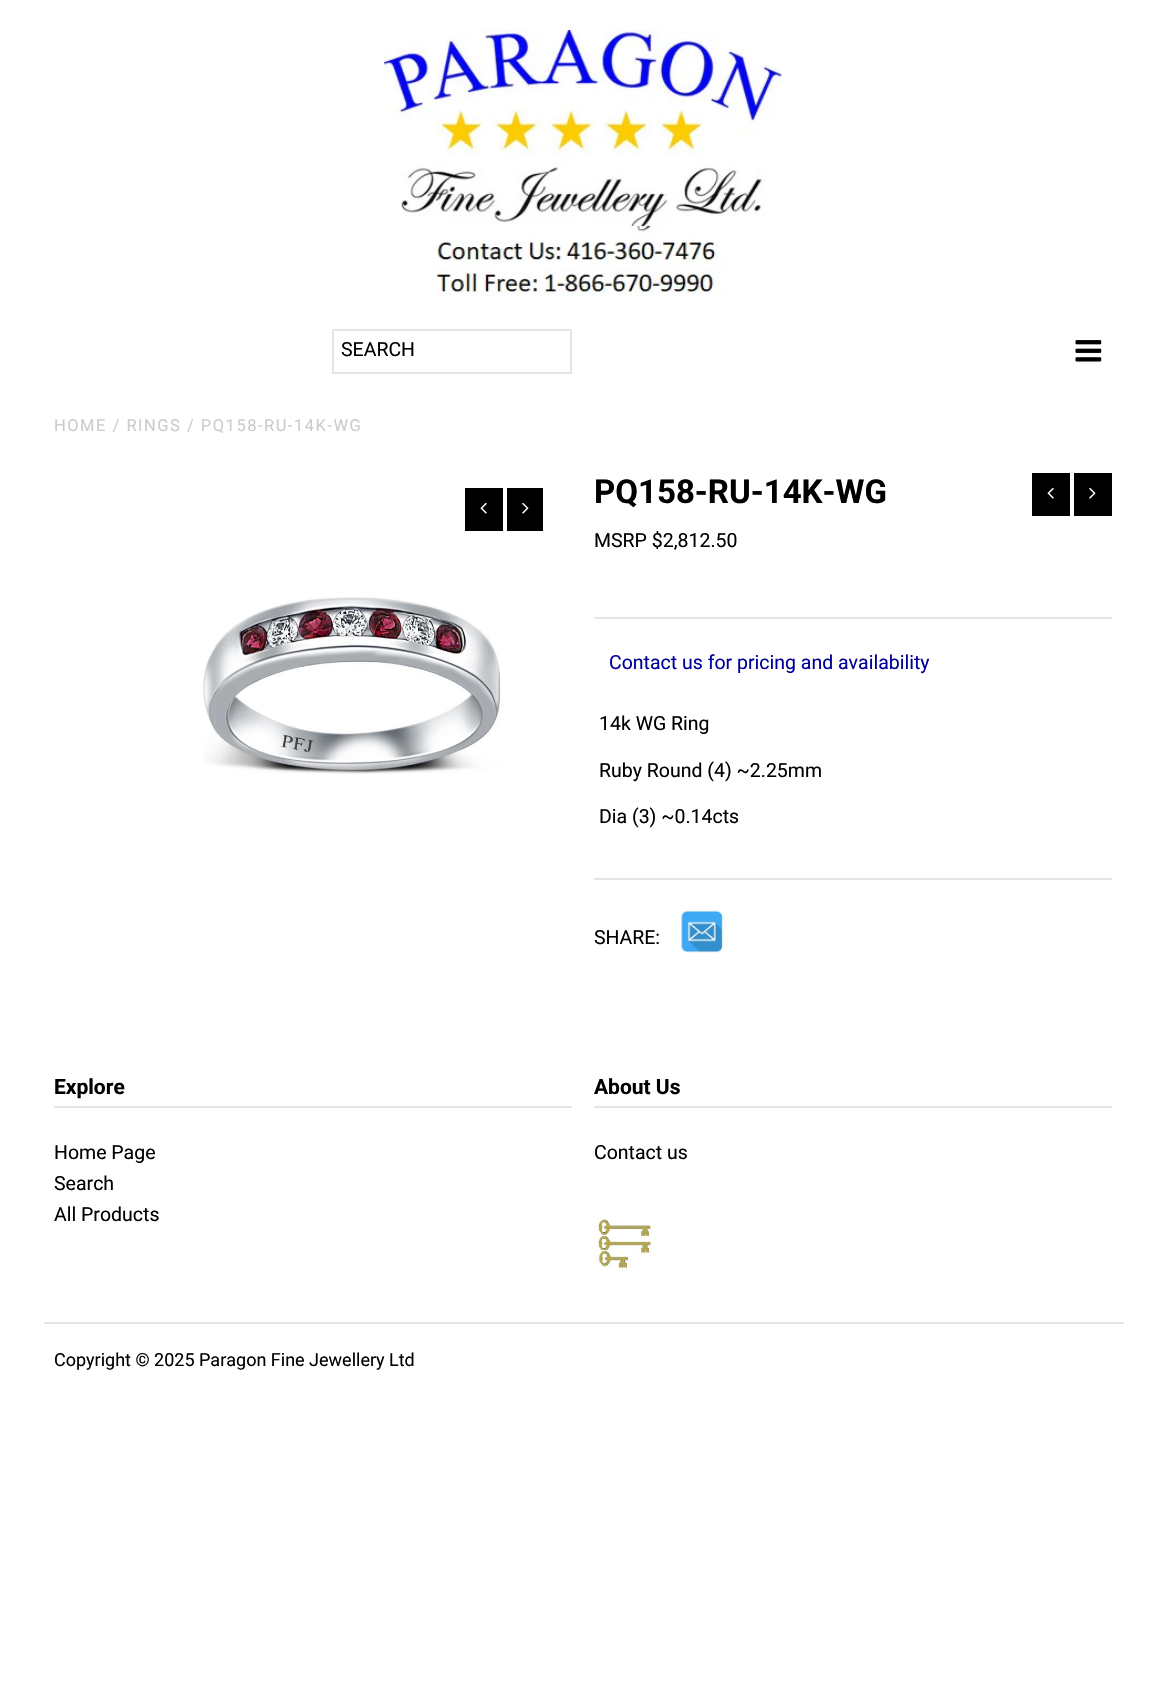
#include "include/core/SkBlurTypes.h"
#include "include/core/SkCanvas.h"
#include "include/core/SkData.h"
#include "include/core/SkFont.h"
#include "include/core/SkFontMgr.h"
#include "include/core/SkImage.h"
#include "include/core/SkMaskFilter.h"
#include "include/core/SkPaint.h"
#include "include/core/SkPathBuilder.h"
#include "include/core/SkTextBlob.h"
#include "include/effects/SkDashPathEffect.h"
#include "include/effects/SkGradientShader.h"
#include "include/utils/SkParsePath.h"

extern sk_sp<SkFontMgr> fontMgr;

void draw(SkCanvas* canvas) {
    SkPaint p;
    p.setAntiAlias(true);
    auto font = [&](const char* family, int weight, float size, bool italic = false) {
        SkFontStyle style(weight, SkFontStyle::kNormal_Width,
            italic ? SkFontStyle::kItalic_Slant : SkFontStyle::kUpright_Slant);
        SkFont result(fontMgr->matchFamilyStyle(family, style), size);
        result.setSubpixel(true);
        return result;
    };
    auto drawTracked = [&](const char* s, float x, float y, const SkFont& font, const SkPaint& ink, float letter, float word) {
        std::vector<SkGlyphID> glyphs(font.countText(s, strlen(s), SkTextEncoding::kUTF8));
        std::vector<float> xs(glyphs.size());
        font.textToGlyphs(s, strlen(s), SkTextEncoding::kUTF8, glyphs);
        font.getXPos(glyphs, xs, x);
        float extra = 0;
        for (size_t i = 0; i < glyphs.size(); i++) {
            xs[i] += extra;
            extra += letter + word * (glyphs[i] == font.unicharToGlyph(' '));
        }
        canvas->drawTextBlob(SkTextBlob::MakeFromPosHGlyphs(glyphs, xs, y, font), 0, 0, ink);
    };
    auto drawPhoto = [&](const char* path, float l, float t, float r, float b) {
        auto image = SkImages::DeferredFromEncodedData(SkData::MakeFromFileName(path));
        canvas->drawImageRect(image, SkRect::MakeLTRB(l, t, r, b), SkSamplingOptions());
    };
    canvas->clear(0xFFFFFFFF);
    drawPhoto("media/1.png", 384, 30, 782, 296);
    p.setStyle(SkPaint::kStroke_Style);
    p.setStrokeWidth(2);
    p.setColor(0xFFE5E5E5);
    canvas->drawRect(SkRect::MakeLTRB(333, 330, 571, 373), p);
    auto font1 = font("Roboto", 400, 19.5f);
    p.setStyle(SkPaint::kFill_Style);
    p.setColor(0xFF000000);
    canvas->drawString("SEARCH", 341, 356, font1, p);
    drawPhoto("media/2.png", 1075, 340, 1102, 362);
    auto font2 = font("Roboto", 400, 16.5f);
    p.setColor(0xFFCCCCCC);
    drawTracked("HOME / RINGS / PQ158-RU-14K-WG", 54, 431, font2, p, 1.5f, 0);
    p.setColor(0xFF000000);
    canvas->drawRect(SkRect::MakeLTRB(465, 488, 503, 531), p);
    drawPhoto("media/3.png", 480, 502, 487, 514);
    canvas->drawRect(SkRect::MakeLTRB(507, 488, 543, 531), p);
    drawPhoto("media/4.png", 522, 502, 529, 514);
    drawPhoto("media/5.png", 203, 597, 502, 774);
    auto font3 = font("Roboto", 700, 33);
    canvas->drawString("PQ158-RU-14K-WG", 594, 503, font3, p);
    canvas->drawRect(SkRect::MakeLTRB(1032, 473, 1070, 516), p);
    drawPhoto("media/3.png", 1047, 487, 1054, 499);
    canvas->drawRect(SkRect::MakeLTRB(1074, 473, 1112, 516), p);
    drawPhoto("media/4.png", 1089, 487, 1096, 499);
    canvas->drawString("MSRP $2,812.50", 594, 547, font1, p);
    p.setColor(0xFFE5E5E5);
    canvas->drawRect(SkRect::MakeLTRB(594, 617, 1112, 619), p);
    p.setColor(0xFF000099);
    canvas->drawString("Contact us for pricing and availability", 609, 669, font1, p);
    p.setColor(0xFF000000);
    {
        const struct { const char* s; float x, y; } items[] = {
            {"14k WG Ring", 599, 730},
            {"Ruby Round (4) ~2.25mm", 599, 777},
            {"Dia (3) ~0.14cts", 599, 823},
        };
        for (auto [s, x, y] : items) {
            canvas->drawString(s, x, y, font1, p);
        }
    }
    p.setColor(0xFFE5E5E5);
    canvas->drawRect(SkRect::MakeLTRB(594, 878, 1112, 880), p);
    p.setColor(0xFF000000);
    canvas->drawString("SHARE:", 594, 944, font1, p);
    drawPhoto("media/6.png", 681, 909, 723, 953);
    p.setColor(0xFFE5E5E5);
    canvas->drawRect(SkRect::MakeLTRB(54, 1106, 572, 1108), p);
    auto font4 = font("Roboto", 700, 21);
    p.setColor(0xFF000000);
    canvas->drawString("Explore", 54, 1094, font4, p);
    {
        const struct { const char* s; float x, y; } items[] = {
            {"Home Page", 54, 1159},
            {"Search", 54, 1190},
            {"All Products", 54, 1221},
        };
        for (auto [s, x, y] : items) {
            canvas->drawString(s, x, y, font1, p);
        }
    }
    p.setColor(0xFFE5E5E5);
    canvas->drawRect(SkRect::MakeLTRB(594, 1106, 1112, 1108), p);
    p.setColor(0xFF000000);
    canvas->drawString("About Us", 594, 1094, font4, p);
    canvas->drawString("Contact us", 594, 1159, font1, p);
    drawPhoto("media/7.png", 594, 1218, 652, 1271);
    p.setColor(0xFFE5E5E5);
    canvas->drawRect(SkRect::MakeLTRB(44, 1322, 1124, 1324), p);
    auto font5 = font("Roboto", 400, 18);
    p.setColor(0xFF000000);
    canvas->drawString("Copyright © 2025 Paragon Fine Jewellery Ltd", 54, 1366, font5, p);
}
